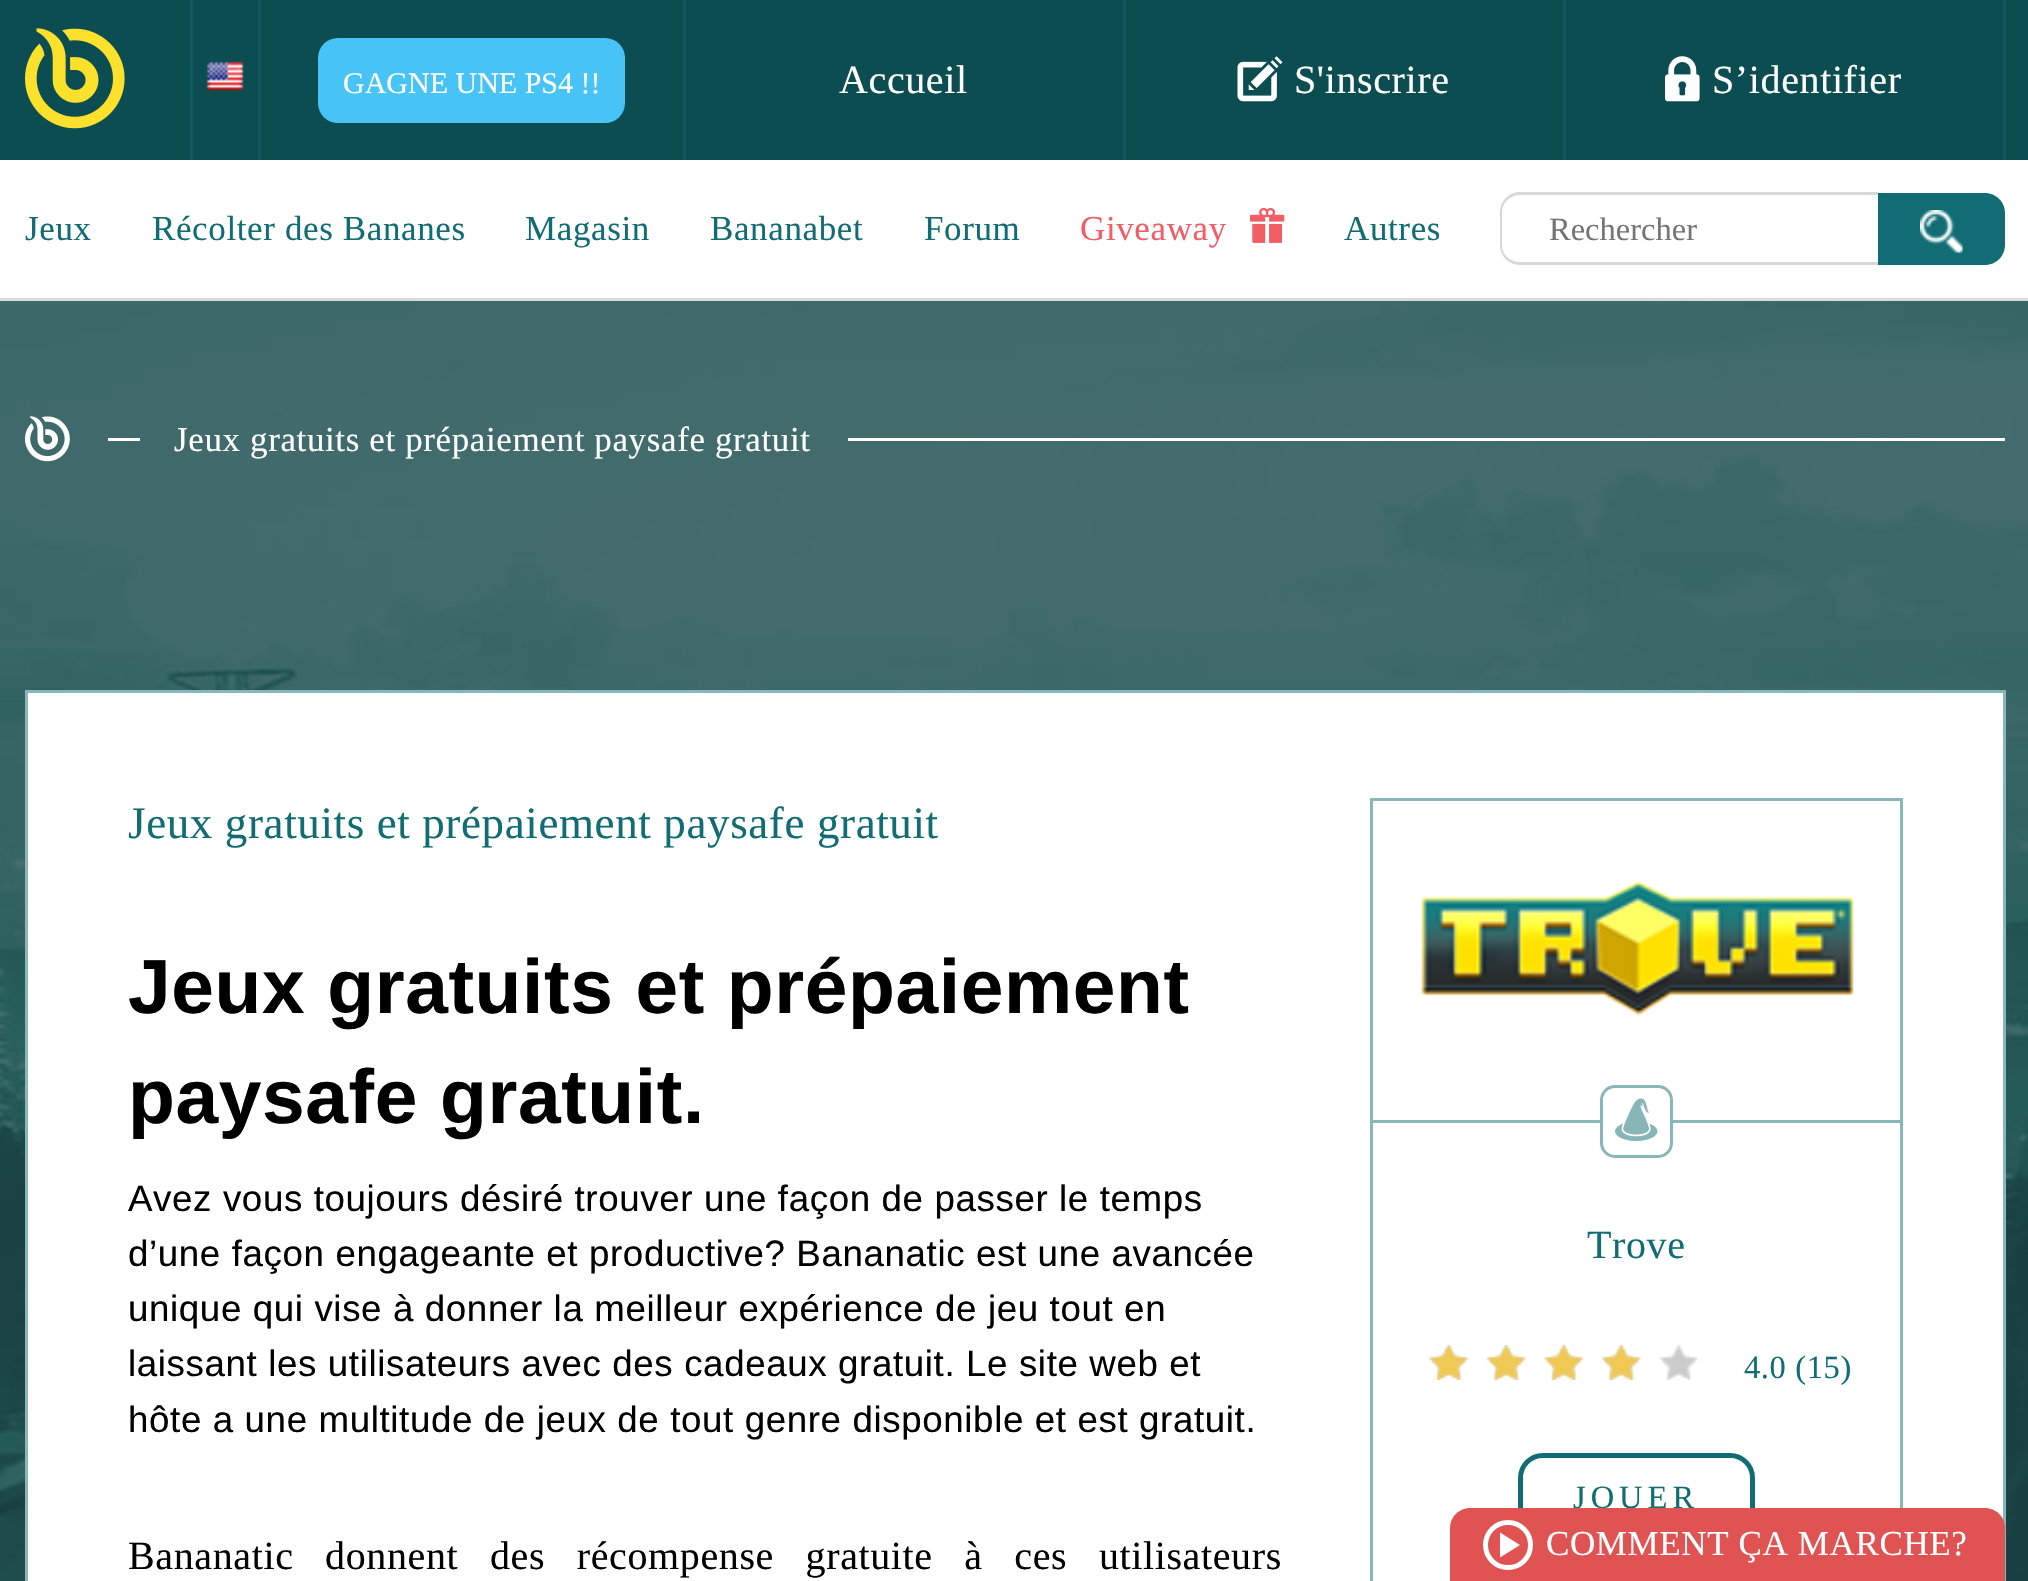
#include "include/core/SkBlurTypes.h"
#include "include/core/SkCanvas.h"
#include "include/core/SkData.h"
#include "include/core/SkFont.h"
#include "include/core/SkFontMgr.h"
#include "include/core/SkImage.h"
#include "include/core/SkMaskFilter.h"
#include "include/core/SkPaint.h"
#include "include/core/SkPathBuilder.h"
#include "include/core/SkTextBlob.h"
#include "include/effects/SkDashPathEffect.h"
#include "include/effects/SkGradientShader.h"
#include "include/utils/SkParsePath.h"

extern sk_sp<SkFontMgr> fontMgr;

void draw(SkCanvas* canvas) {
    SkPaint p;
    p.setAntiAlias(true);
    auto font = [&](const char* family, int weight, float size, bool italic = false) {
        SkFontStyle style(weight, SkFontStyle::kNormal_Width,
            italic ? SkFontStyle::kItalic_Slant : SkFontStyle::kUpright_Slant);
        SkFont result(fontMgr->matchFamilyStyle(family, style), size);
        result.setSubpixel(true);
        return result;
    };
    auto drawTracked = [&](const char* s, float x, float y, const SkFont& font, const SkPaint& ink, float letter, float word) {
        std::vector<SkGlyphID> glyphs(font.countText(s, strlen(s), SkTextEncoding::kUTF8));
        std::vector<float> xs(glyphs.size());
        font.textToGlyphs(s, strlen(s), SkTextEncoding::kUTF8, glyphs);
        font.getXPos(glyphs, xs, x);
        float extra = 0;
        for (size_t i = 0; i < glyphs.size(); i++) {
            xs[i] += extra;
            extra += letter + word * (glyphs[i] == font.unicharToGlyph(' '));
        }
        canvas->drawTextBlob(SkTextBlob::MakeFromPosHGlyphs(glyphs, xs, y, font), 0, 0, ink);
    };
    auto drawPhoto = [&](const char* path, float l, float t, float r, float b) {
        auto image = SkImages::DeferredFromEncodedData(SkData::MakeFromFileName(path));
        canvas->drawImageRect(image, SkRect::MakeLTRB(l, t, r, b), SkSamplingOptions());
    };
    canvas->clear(0xFFFFFFFF);
    p.setColor(0xFF0B4D51);
    canvas->drawRect(SkRect::MakeLTRB(0, 0, 2028, 160), p);
    drawPhoto("media/1.png", 25, 28, 125, 129);
    p.setColor(0xFF0F595E);
    canvas->drawRect(SkRect::MakeLTRB(2003, 0, 2006, 160), p);
    canvas->drawRect(SkRect::MakeLTRB(190, 0, 193, 160), p);
    drawPhoto("media/2.png", 206, 61, 244, 91);
    canvas->drawRect(SkRect::MakeLTRB(258, 0, 261, 160), p);
    p.setColor(0xFF47C4F5);
    canvas->drawRoundRect(SkRect::MakeLTRB(318, 38, 625, 123), 20, 20, p);
    auto font1 = font("Liberation Serif", 400, 30);
    p.setColor(0xFFFFFFFF);
    canvas->drawString("GAGNE UNE PS4 !!", 343, 93, font1, p);
    p.setColor(0xFF0F595E);
    canvas->drawRect(SkRect::MakeLTRB(683, 0, 686, 160), p);
    auto font2 = font("Liberation Serif", 400, 40);
    p.setColor(0xFFFFFFFF);
    drawTracked("Accueil", 839, 93, font2, p, 0.62f, 0);
    p.setColor(0xFF0F595E);
    canvas->drawRect(SkRect::MakeLTRB(1123, 0, 1126, 160), p);
    drawPhoto("media/3.png", 1237, 56, 1283, 102);
    p.setColor(0xFFFFFFFF);
    drawTracked("S'inscrire", 1294, 93, font2, p, 0.62f, 0);
    p.setColor(0xFF0F595E);
    canvas->drawRect(SkRect::MakeLTRB(1563, 0, 1566, 160), p);
    drawPhoto("media/4.png", 1665, 56, 1700, 102);
    p.setColor(0xFFFFFFFF);
    drawTracked("S’identifier", 1712, 93, font2, p, 0.62f, 0);
    auto font3 = font("Liberation Serif", 400, 35);
    p.setColor(0xFF116D73);
    {
        const struct { const char* s; float x, y; } items[] = {
            {"Jeux", 25, 240},
            {"Récolter des Bananes", 152, 240},
            {"Magasin", 525, 240},
            {"Bananabet", 710, 240},
            {"Forum", 924, 240},
        };
        for (auto [s, x, y] : items) {
            drawTracked(s, x, y, font3, p, 0.62f, 0);
        }
    }
    p.setColor(0xFFF35D66);
    drawTracked("Giveaway", 1080, 240, font3, p, 0.62f, 0);
    drawPhoto("media/5.png", 1250, 207, 1285, 243);
    p.setColor(0xFF116D73);
    drawTracked("Autres", 1344, 240, font3, p, 0.62f, 0);
    p.setColor(0xFFD8D8D8);
    canvas->drawPath(SkPathBuilder(SkPathFillType::kEvenOdd).moveTo(1520, 192).lineTo(1878, 192).lineTo(1878, 265).lineTo(1520, 265).cubicTo(1509, 265, 1500, 256, 1500, 245).lineTo(1500, 212).cubicTo(1500, 201, 1509, 192, 1520, 192).close().moveTo(1520, 195).lineTo(1878, 195).lineTo(1878, 262).lineTo(1520, 262).cubicTo(1510, 262, 1502, 255, 1502, 245).lineTo(1502, 212).cubicTo(1502, 203, 1510, 195, 1520, 195).close().detach(), p);
    auto font4 = font("Liberation Serif", 400, 32.5f);
    p.setColor(0xFF757575);
    canvas->drawString("Rechercher", 1549, 240, font4, p);
    p.setColor(0xFF116D73);
    canvas->drawPath(SkPathBuilder().moveTo(1878, 193).lineTo(1985, 193).cubicTo(1996, 193, 2005, 202, 2005, 213).lineTo(2005, 245).cubicTo(2005, 256, 1996, 265, 1985, 265).lineTo(1878, 265).close().detach(), p);
    drawPhoto("media/6.png", 1920, 210, 1963, 253);
    p.setColor(0xFFDBDBDB);
    canvas->drawRect(SkRect::MakeLTRB(0, 298, 2028, 301), p);
    drawPhoto("media/7.png", 0, 301, 2028, 1581);
    drawPhoto("media/8.png", 25, 416, 70, 462);
    p.setColor(0xFFFFFFFF);
    canvas->drawRect(SkRect::MakeLTRB(108, 438, 140, 441), p);
    drawTracked("Jeux gratuits et prépaiement paysafe gratuit", 174, 451, font3, p, 0.62f, 0);
    {
        const struct { float l, t, r, b; SkColor color; } items[] = {
            {848, 438, 2005, 441, 0xFFFFFFFF},
            {28, 693, 2003, 1581, 0xFFFFFFFF},
            {25, 690, 2005, 693, 0xFF88B6B9},
            {2003, 690, 2006, 1581, 0xFF88B6B9},
            {25, 690, 28, 1581, 0xFF88B6B9},
        };
        for (auto [l, t, r, b, color] : items) {
            p.setColor(color);
            canvas->drawRect(SkRect::MakeLTRB(l, t, r, b), p);
        }
    }
    auto font5 = font("Liberation Serif", 400, 45);
    p.setColor(0xFF116D73);
    drawTracked("Jeux gratuits et prépaiement paysafe gratuit", 128, 838, font5, p, 0.62f, 0);
    auto font6 = font("Liberation Sans", 700, 76.7f);
    p.setColor(0xFF000000);
    drawTracked("Jeux gratuits et prépaiement", 128, 1013, font6, p, 0.62f, 0);
    drawTracked("paysafe gratuit.", 128, 1123, font6, p, 0.62f, 0);
    auto font7 = font("Liberation Sans", 400, 36.7f);
    {
        const struct { const char* s; float x, y; } items[] = {
            {"Avez vous toujours désiré trouver une façon de passer le temps", 128, 1211},
            {"d’une façon engageante et productive? Bananatic est une avancée", 128, 1266},
            {"unique qui vise à donner la meilleur expérience de jeu tout en", 128, 1321},
            {"laissant les utilisateurs avec des cadeaux gratuit. Le site web et", 128, 1376},
            {"hôte a une multitude de jeux de tout genre disponible et est gratuit.", 128, 1432},
        };
        for (auto [s, x, y] : items) {
            drawTracked(s, x, y, font7, p, 0.62f, 0);
        }
    }
    drawTracked("Bananatic donnent des récompense gratuite à ces utilisateurs", 128, 1569, font2, p, 0.62f, 21);
    p.setStyle(SkPaint::kStroke_Style);
    p.setStrokeWidth(3);
    p.setColor(0xFF88B6B9);
    canvas->drawRect(SkRect::MakeLTRB(1371.5f, 799.5f, 1901.5f, 1121.5f), p);
    drawPhoto("media/9.png", 1421, 882, 1854, 1016);
    p.setStyle(SkPaint::kFill_Style);
    canvas->drawRect(SkRect::MakeLTRB(1900, 1123, 1903, 1508), p);
    canvas->drawRect(SkRect::MakeLTRB(1370, 1123, 1373, 1581), p);
    p.setColor(0xFFFFFFFF);
    canvas->drawRoundRect(SkRect::MakeLTRB(1601.5f, 1086.5f, 1671.5f, 1156.5f), 13.5f, 13.5f, p);
    p.setStyle(SkPaint::kStroke_Style);
    p.setColor(0xFF89B6B9);
    canvas->drawRoundRect(SkRect::MakeLTRB(1601.5f, 1086.5f, 1671.5f, 1156.5f), 13.5f, 13.5f, p);
    drawPhoto("media/10.png", 1615, 1098, 1658, 1141);
    p.setStyle(SkPaint::kFill_Style);
    p.setColor(0xFF116D73);
    drawTracked("Trove", 1587, 1258, font2, p, 0.62f, 0);
    drawPhoto("media/11.png", 1429, 1345, 1698, 1380);
    drawPhoto("media/12.png", 1429, 1345, 1641, 1380);
    drawTracked("4.0 (15)", 1744, 1378, font4, p, 0.62f, 0);
    p.setStyle(SkPaint::kStroke_Style);
    p.setStrokeWidth(5);
    canvas->drawRoundRect(SkRect::MakeLTRB(1520.5f, 1455.5f, 1752.5f, 1540.5f), 22.5f, 22.5f, p);
    p.setStyle(SkPaint::kFill_Style);
    drawTracked("JOUER", 1573, 1508, font4, p, 5, 0);
    p.setColor(0xFFE05353);
    canvas->drawPath(SkPathBuilder().moveTo(1470, 1508).lineTo(1985, 1508).cubicTo(1996, 1508, 2005, 1517, 2005, 1528).lineTo(2005, 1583).lineTo(1450, 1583).lineTo(1450, 1528).cubicTo(1450, 1517, 1459, 1508, 1470, 1508).close().detach(), p);
    p.setColor(0xFFFFFFFF);
    canvas->drawPath(SkPathBuilder().moveTo(1500, 1557.5f).lineTo(1500, 1532.5f).lineTo(1520, 1545).close().detach(), p);
    p.setStyle(SkPaint::kStroke_Style);
    canvas->drawCircle(1508, 1545, 22.5f, p);
    p.setStyle(SkPaint::kFill_Style);
    drawTracked("COMMENT ÇA MARCHE?", 1546, 1555, font3, p, 0.62f, 0);
}
